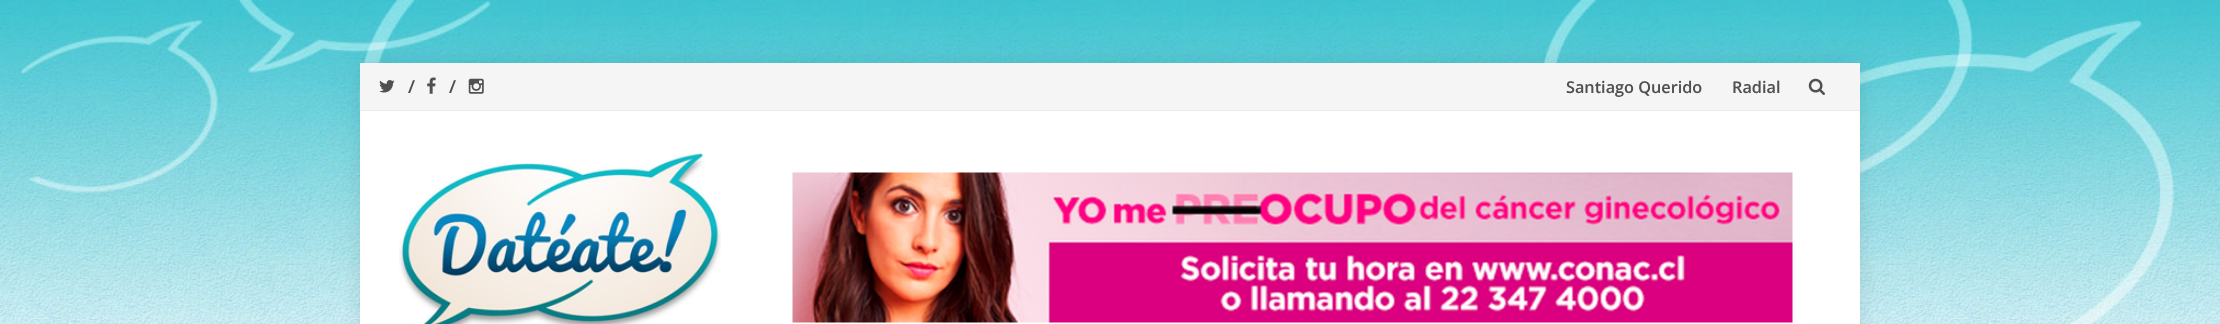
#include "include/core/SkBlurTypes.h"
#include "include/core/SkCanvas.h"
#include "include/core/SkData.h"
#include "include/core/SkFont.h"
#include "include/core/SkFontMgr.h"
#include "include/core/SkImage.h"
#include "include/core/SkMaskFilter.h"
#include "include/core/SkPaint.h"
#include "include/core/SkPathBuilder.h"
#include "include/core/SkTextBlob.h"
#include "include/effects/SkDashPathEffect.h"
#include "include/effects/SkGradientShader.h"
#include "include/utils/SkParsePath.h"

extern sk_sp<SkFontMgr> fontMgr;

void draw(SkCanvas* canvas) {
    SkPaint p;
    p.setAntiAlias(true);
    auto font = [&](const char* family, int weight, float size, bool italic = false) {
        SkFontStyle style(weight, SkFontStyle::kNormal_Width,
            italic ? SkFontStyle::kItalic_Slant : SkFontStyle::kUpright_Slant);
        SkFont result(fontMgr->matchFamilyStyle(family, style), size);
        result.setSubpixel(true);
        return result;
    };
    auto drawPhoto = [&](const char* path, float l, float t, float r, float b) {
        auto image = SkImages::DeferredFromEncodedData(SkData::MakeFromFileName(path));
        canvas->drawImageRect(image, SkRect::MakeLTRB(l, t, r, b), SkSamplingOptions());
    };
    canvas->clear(0xFFFFFFFF);
    drawPhoto("media/1.png", 0, 0, 2220, 324);
    p.setColor(0x1A000000);
    p.setMaskFilter(SkMaskFilter::MakeBlur(kNormal_SkBlurStyle, 9.5f));
    canvas->drawRect(SkRect::MakeLTRB(360, 63, 1860, 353), p);
    p.setMaskFilter(nullptr);
    {
        const struct { float l, t, r, b; SkColor color; } items[] = {
            {360, 111, 1860, 324, 0xFFFFFFFF},
            {360, 63, 1860, 110, 0xFFF5F5F5},
            {360, 110, 1860, 111, 0xFFEAEAEA},
        };
        for (auto [l, t, r, b, color] : items) {
            p.setColor(color);
            canvas->drawRect(SkRect::MakeLTRB(l, t, r, b), p);
        }
    }
    drawPhoto("media/2.png", 379, 80, 395, 93);
    auto font1 = font("Open Sans", 600, 18);
    p.setColor(0xFF505050);
    canvas->drawString("/", 408, 93, font1, p);
    drawPhoto("media/3.png", 427, 77, 436, 94);
    canvas->drawString("/", 449, 93, font1, p);
    drawPhoto("media/4.png", 468, 78, 484, 94);
    auto font2 = font("Open Sans", 600, 16.25f);
    canvas->drawString("Santiago Querido", 1566, 93, font2, p);
    canvas->drawString("Radial", 1732, 93, font2, p);
    drawPhoto("media/5.png", 1808, 78, 1825, 95);
    drawPhoto("media/6.png", 399, 153, 721, 324);
    drawPhoto("media/7.png", 792, 172, 1793, 323);
}
